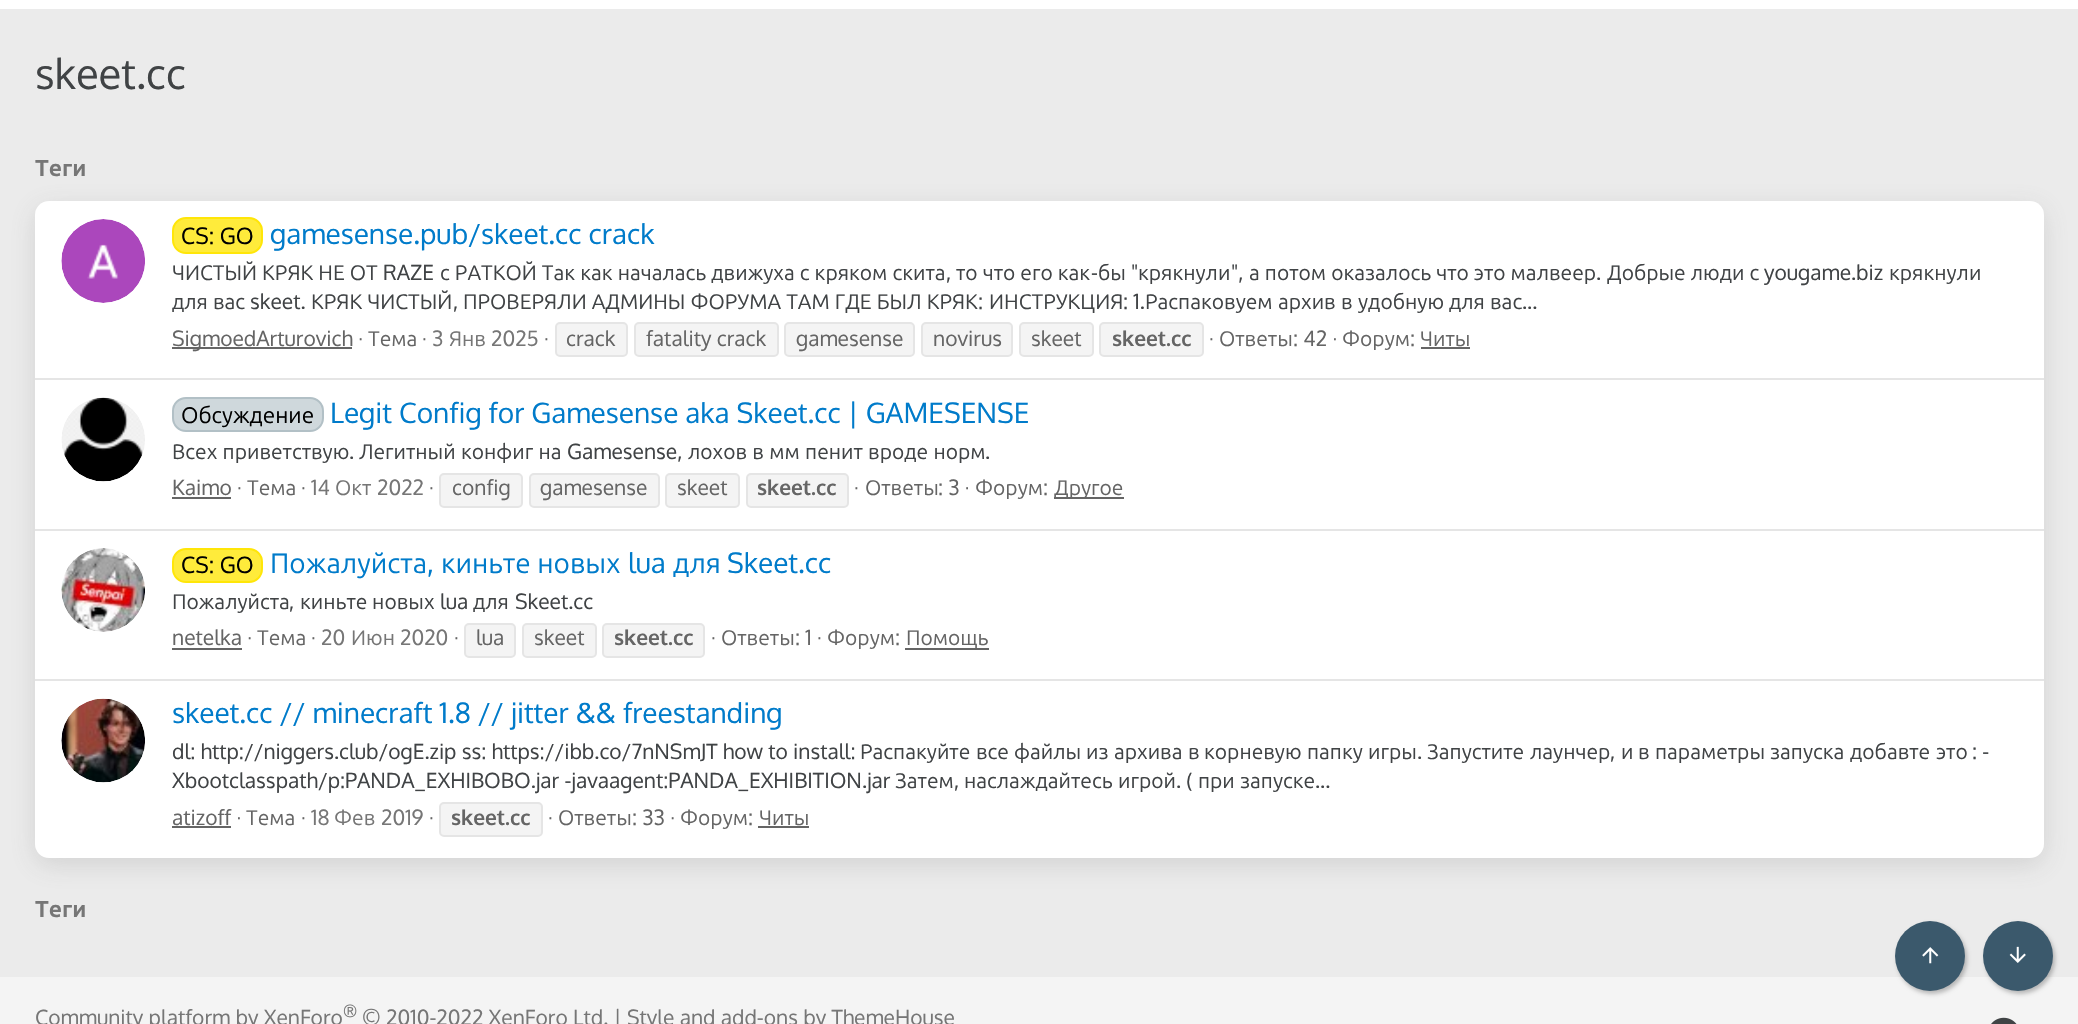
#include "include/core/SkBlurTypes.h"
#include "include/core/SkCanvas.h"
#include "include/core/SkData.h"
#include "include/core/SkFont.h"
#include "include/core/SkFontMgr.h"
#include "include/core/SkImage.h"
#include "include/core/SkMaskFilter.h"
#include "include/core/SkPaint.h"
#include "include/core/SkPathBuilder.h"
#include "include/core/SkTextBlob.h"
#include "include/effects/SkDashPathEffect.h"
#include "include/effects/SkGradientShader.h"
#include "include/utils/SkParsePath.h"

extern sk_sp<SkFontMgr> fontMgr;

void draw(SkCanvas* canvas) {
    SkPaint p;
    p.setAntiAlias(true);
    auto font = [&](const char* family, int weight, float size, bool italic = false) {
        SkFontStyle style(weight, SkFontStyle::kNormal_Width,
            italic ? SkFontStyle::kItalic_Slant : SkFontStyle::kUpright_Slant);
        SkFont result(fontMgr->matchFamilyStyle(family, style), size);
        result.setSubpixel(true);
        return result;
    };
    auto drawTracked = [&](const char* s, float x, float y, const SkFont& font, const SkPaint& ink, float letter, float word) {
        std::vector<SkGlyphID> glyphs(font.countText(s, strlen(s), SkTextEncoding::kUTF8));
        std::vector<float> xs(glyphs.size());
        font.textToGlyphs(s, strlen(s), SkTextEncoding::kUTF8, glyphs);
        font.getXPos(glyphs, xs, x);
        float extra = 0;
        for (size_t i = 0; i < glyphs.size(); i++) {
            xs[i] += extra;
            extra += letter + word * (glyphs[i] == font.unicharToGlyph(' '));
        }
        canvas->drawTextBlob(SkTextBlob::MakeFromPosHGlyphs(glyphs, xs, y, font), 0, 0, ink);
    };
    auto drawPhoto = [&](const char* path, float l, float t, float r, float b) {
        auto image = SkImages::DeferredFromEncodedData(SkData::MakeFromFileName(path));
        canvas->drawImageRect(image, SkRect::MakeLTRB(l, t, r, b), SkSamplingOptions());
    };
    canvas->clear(0xFFEBEBEB);
    p.setColor(0xFFFFFFFF);
    canvas->drawRect(SkRect::MakeLTRB(0, 0, 2078, 9), p);
    auto font1 = font("Oxygen", 400, 42);
    p.setColor(0xFF404345);
    canvas->drawString("skeet.cc", 35, 89, font1, p);
    p.setColor(0x336E6E6E);
    p.setMaskFilter(SkMaskFilter::MakeBlur(kNormal_SkBlurStyle, 13));
    canvas->drawRoundRect(SkRect::MakeLTRB(35, 208, 2044, 865), 14, 14, p);
    p.setMaskFilter(nullptr);
    auto font2 = font("Ubuntu", 700, 23);
    p.setColor(0xFF767676);
    canvas->drawString("Теги", 35, 176, font2, p);
    p.setColor(0xFFFFFFFF);
    canvas->drawRoundRect(SkRect::MakeLTRB(35, 201, 2044, 858), 14, 14, p);
    drawPhoto("media/1.png", 61, 219, 145, 303);
    p.setColor(0xFFFFEB3B);
    canvas->drawRoundRect(SkRect::MakeLTRB(173, 218, 262, 253), 13, 13, p);
    p.setStyle(SkPaint::kStroke_Style);
    p.setStrokeWidth(2);
    p.setColor(0xFFFFE608);
    canvas->drawRoundRect(SkRect::MakeLTRB(173, 218, 262, 253), 13, 13, p);
    auto font3 = font("Oxygen", 400, 22.5f);
    p.setStyle(SkPaint::kFill_Style);
    p.setColor(0xFF000000);
    canvas->drawString("CS: GO", 181, 244, font3, p);
    auto font4 = font("Oxygen", 400, 28);
    p.setColor(0xFF007BCA);
    canvas->drawString("gamesense.pub/skeet.cc crack", 270, 244, font4, p);
    auto font5 = font("Ubuntu", 400, 21);
    p.setColor(0xFF404345);
    drawTracked("ЧИСТЫЙ КРЯК НЕ ОТ", 172, 280, font5, p, 0, 0.25f);
    auto font6 = font("Oxygen", 400, 21);
    canvas->drawString("RAZE", 383, 280, font6, p);
    drawTracked("с РАТКОЙ Так как началась движуха с кряком скита", 440, 280, font5, p, 0, 0.25f);
    drawTracked("то что его как", 956, 280, font5, p, 0, 0.25f);
    canvas->drawString("-", 1091, 280, font6, p);
    canvas->drawString("бы", 1098, 280, font5, p);
    canvas->drawString("\"", 1131, 280, font6, p);
    canvas->drawString("крякнули", 1138, 280, font5, p);
    canvas->drawString("\",", 1231, 280, font6, p);
    drawTracked("а потом оказалось что это малвеер", 1249, 280, font5, p, 0, 0.25f);
    drawTracked("Добрые люди с", 1607, 280, font5, p, 0, 0.25f);
    canvas->drawString("yougame.biz", 1764, 280, font6, p);
    canvas->drawString("крякнули", 1889, 280, font5, p);
    canvas->drawString(",", 946, 280, font6, p);
    canvas->drawString(".", 1596, 280, font6, p);
    drawTracked("для вас", 172, 309, font5, p, 0, 0.25f);
    canvas->drawString("skeet.", 250, 309, font6, p);
    drawTracked("КРЯК ЧИСТЫЙ", 311, 309, font5, p, 0, 0.25f);
    canvas->drawString(",", 453, 309, font6, p);
    drawTracked("ПРОВЕРЯЛИ АДМИНЫ ФОРУМА ТАМ ГДЕ БЫЛ КРЯК", 463, 309, font5, p, 0, 0.25f);
    canvas->drawString(":", 978, 309, font6, p);
    canvas->drawString("ИНСТРУКЦИЯ", 989, 309, font5, p);
    canvas->drawString(": 1.", 1123, 309, font6, p);
    {
        const struct { const char* s; float x, y; } items[] = {
            {"Распаковуем", 1145, 309},
            {"архив", 1278, 309},
            {"в", 1341, 309},
            {"удобную", 1358, 309},
            {"для", 1449, 309},
            {"вас", 1490, 309},
        };
        for (auto [s, x, y] : items) {
            canvas->drawString(s, x, y, font5, p);
        }
    }
    canvas->drawString("...", 1522, 309, font6, p);
    p.setColor(0xFF656565);
    canvas->drawRect(SkRect::MakeLTRB(172, 347, 352, 349), p);
    canvas->drawString("SigmoedArturovich ·", 172, 346, font6, p);
    canvas->drawString("Тема", 368, 346, font5, p);
    canvas->drawString("·", 422, 346, font6, p);
    p.setColor(0xFF767676);
    canvas->drawString("3", 432, 346, font6, p);
    canvas->drawString("Янв", 449, 346, font5, p);
    canvas->drawString("2025", 491, 346, font6, p);
    p.setColor(0xFF656565);
    canvas->drawString("·", 544, 346, font6, p);
    p.setColor(0xFFF4F4F4);
    canvas->drawRoundRect(SkRect::MakeLTRB(556, 323, 627, 356), 4, 4, p);
    p.setStyle(SkPaint::kStroke_Style);
    p.setColor(0xFFE5E5E5);
    canvas->drawRoundRect(SkRect::MakeLTRB(556, 323, 627, 356), 4, 4, p);
    p.setStyle(SkPaint::kFill_Style);
    p.setColor(0xFF656565);
    canvas->drawString("crack", 566, 346, font6, p);
    p.setColor(0xFFF4F4F4);
    canvas->drawRoundRect(SkRect::MakeLTRB(635, 323, 778, 356), 4, 4, p);
    p.setStyle(SkPaint::kStroke_Style);
    p.setColor(0xFFE5E5E5);
    canvas->drawRoundRect(SkRect::MakeLTRB(635, 323, 778, 356), 4, 4, p);
    p.setStyle(SkPaint::kFill_Style);
    p.setColor(0xFF656565);
    canvas->drawString("fatality crack", 646, 346, font6, p);
    p.setColor(0xFFF4F4F4);
    canvas->drawRoundRect(SkRect::MakeLTRB(785, 323, 914, 356), 4, 4, p);
    p.setStyle(SkPaint::kStroke_Style);
    p.setColor(0xFFE5E5E5);
    canvas->drawRoundRect(SkRect::MakeLTRB(785, 323, 914, 356), 4, 4, p);
    p.setStyle(SkPaint::kFill_Style);
    p.setColor(0xFF656565);
    canvas->drawString("gamesense", 796, 346, font6, p);
    p.setColor(0xFFF4F4F4);
    canvas->drawRoundRect(SkRect::MakeLTRB(922, 323, 1012, 356), 4, 4, p);
    p.setStyle(SkPaint::kStroke_Style);
    p.setColor(0xFFE5E5E5);
    canvas->drawRoundRect(SkRect::MakeLTRB(922, 323, 1012, 356), 4, 4, p);
    p.setStyle(SkPaint::kFill_Style);
    p.setColor(0xFF656565);
    canvas->drawString("novirus", 933, 346, font6, p);
    p.setColor(0xFFF4F4F4);
    canvas->drawRoundRect(SkRect::MakeLTRB(1020, 323, 1093, 356), 4, 4, p);
    p.setStyle(SkPaint::kStroke_Style);
    p.setColor(0xFFE5E5E5);
    canvas->drawRoundRect(SkRect::MakeLTRB(1020, 323, 1093, 356), 4, 4, p);
    p.setStyle(SkPaint::kFill_Style);
    p.setColor(0xFF656565);
    canvas->drawString("skeet", 1031, 346, font6, p);
    p.setColor(0xFFF4F4F4);
    canvas->drawRoundRect(SkRect::MakeLTRB(1100, 323, 1203, 356), 4, 4, p);
    p.setStyle(SkPaint::kStroke_Style);
    p.setColor(0xFFE5E5E5);
    canvas->drawRoundRect(SkRect::MakeLTRB(1100, 323, 1203, 356), 4, 4, p);
    auto font7 = font("Oxygen", 700, 21);
    p.setStyle(SkPaint::kFill_Style);
    p.setColor(0xFF656565);
    canvas->drawString("skeet.cc", 1112, 346, font7, p);
    canvas->drawString("·", 1209, 346, font6, p);
    canvas->drawString("Ответы", 1219, 346, font5, p);
    canvas->drawString(": 42 ·", 1293, 346, font6, p);
    canvas->drawString("Форум", 1342, 346, font5, p);
    canvas->drawString(":", 1410, 346, font6, p);
    canvas->drawString("Читы", 1420, 346, font5, p);
    canvas->drawRect(SkRect::MakeLTRB(1421, 347, 1470, 349), p);
    p.setColor(0xFFE5E5E5);
    canvas->drawRect(SkRect::MakeLTRB(35, 378, 2044, 380), p);
    drawPhoto("media/2.png", 61, 397, 145, 482);
    p.setColor(0xFFCFD8DC);
    canvas->drawRoundRect(SkRect::MakeLTRB(173, 398, 323, 431), 13, 13, p);
    p.setStyle(SkPaint::kStroke_Style);
    p.setColor(0xFFB2C0C6);
    canvas->drawRoundRect(SkRect::MakeLTRB(173, 398, 323, 431), 13, 13, p);
    auto font8 = font("Ubuntu", 400, 22.5f);
    p.setStyle(SkPaint::kFill_Style);
    p.setColor(0xFF000000);
    canvas->drawString("Обсуждение", 181, 423, font8, p);
    p.setColor(0xFF007BCA);
    canvas->drawString("Legit Config for Gamesense aka Skeet.cc | GAMESENSE", 330, 423, font4, p);
    p.setColor(0xFF404345);
    drawTracked("Всех приветствую", 172, 459, font5, p, 0, 0.5f);
    canvas->drawString(".", 349, 459, font6, p);
    drawTracked("Легитный конфиг на", 359, 459, font5, p, 0, 0.5f);
    canvas->drawString("Gamesense,", 567, 459, font6, p);
    drawTracked("лохов в мм пенит вроде норм", 688, 459, font5, p, 0, 0.5f);
    canvas->drawString(".", 985, 459, font6, p);
    p.setColor(0xFF656565);
    canvas->drawString("Kaimo ·", 172, 495, font6, p);
    canvas->drawRect(SkRect::MakeLTRB(172, 497, 231, 499), p);
    canvas->drawString("Тема", 247, 495, font5, p);
    canvas->drawString("·", 301, 495, font6, p);
    p.setColor(0xFF767676);
    canvas->drawString("14", 311, 495, font6, p);
    canvas->drawString("Окт", 335, 495, font5, p);
    canvas->drawString("2022", 377, 495, font6, p);
    p.setColor(0xFF656565);
    canvas->drawString("·", 429, 495, font6, p);
    p.setColor(0xFFF4F4F4);
    canvas->drawRoundRect(SkRect::MakeLTRB(440, 474, 522, 507), 4, 4, p);
    p.setStyle(SkPaint::kStroke_Style);
    p.setColor(0xFFE5E5E5);
    canvas->drawRoundRect(SkRect::MakeLTRB(440, 474, 522, 507), 4, 4, p);
    p.setStyle(SkPaint::kFill_Style);
    p.setColor(0xFF656565);
    canvas->drawString("config", 452, 495, font6, p);
    p.setColor(0xFFF4F4F4);
    canvas->drawRoundRect(SkRect::MakeLTRB(530, 474, 659, 507), 4, 4, p);
    p.setStyle(SkPaint::kStroke_Style);
    p.setColor(0xFFE5E5E5);
    canvas->drawRoundRect(SkRect::MakeLTRB(530, 474, 659, 507), 4, 4, p);
    p.setStyle(SkPaint::kFill_Style);
    p.setColor(0xFF656565);
    canvas->drawString("gamesense", 540, 495, font6, p);
    p.setColor(0xFFF4F4F4);
    canvas->drawRoundRect(SkRect::MakeLTRB(666, 474, 739, 507), 4, 4, p);
    p.setStyle(SkPaint::kStroke_Style);
    p.setColor(0xFFE5E5E5);
    canvas->drawRoundRect(SkRect::MakeLTRB(666, 474, 739, 507), 4, 4, p);
    p.setStyle(SkPaint::kFill_Style);
    p.setColor(0xFF656565);
    canvas->drawString("skeet", 677, 495, font6, p);
    p.setColor(0xFFF4F4F4);
    canvas->drawRoundRect(SkRect::MakeLTRB(747, 474, 848, 507), 4, 4, p);
    p.setStyle(SkPaint::kStroke_Style);
    p.setColor(0xFFE5E5E5);
    canvas->drawRoundRect(SkRect::MakeLTRB(747, 474, 848, 507), 4, 4, p);
    p.setStyle(SkPaint::kFill_Style);
    p.setColor(0xFF656565);
    canvas->drawString("skeet.cc", 757, 495, font7, p);
    canvas->drawString("·", 854, 495, font6, p);
    canvas->drawString("Ответы", 865, 495, font5, p);
    canvas->drawString(": 3 ·", 938, 495, font6, p);
    canvas->drawString("Форум", 975, 495, font5, p);
    canvas->drawString(":", 1043, 495, font6, p);
    canvas->drawRect(SkRect::MakeLTRB(1054, 497, 1124, 499), p);
    canvas->drawString("Другое", 1054, 495, font5, p);
    p.setColor(0xFFE5E5E5);
    canvas->drawRect(SkRect::MakeLTRB(35, 529, 2044, 531), p);
    drawPhoto("media/3.png", 61, 548, 145, 632);
    p.setColor(0xFFFFEB3B);
    canvas->drawRoundRect(SkRect::MakeLTRB(173, 549, 262, 582), 13, 13, p);
    p.setStyle(SkPaint::kStroke_Style);
    p.setColor(0xFFFFE608);
    canvas->drawRoundRect(SkRect::MakeLTRB(173, 549, 262, 582), 13, 13, p);
    p.setStyle(SkPaint::kFill_Style);
    p.setColor(0xFF000000);
    canvas->drawString("CS: GO", 181, 573, font3, p);
    auto font9 = font("Ubuntu", 400, 28);
    p.setColor(0xFF007BCA);
    canvas->drawString("Пожалуйста", 270, 573, font9, p);
    canvas->drawString(",", 427, 573, font4, p);
    canvas->drawString("киньте новых", 441, 573, font9, p);
    canvas->drawString("lua", 628, 573, font4, p);
    canvas->drawString("для", 673, 573, font9, p);
    canvas->drawString("Skeet.cc", 727, 573, font4, p);
    p.setColor(0xFF404345);
    canvas->drawString("Пожалуйста", 172, 609, font5, p);
    canvas->drawString(",", 289, 609, font6, p);
    canvas->drawString("киньте новых", 300, 609, font5, p);
    canvas->drawString("lua", 440, 609, font6, p);
    canvas->drawString("для", 473, 609, font5, p);
    canvas->drawString("Skeet.cc", 515, 609, font6, p);
    p.setColor(0xFF656565);
    canvas->drawString("netelka ·", 172, 645, font6, p);
    canvas->drawRect(SkRect::MakeLTRB(172, 648, 242, 650), p);
    canvas->drawString("Тема", 257, 645, font5, p);
    canvas->drawString("·", 311, 645, font6, p);
    p.setColor(0xFF767676);
    canvas->drawString("20", 321, 645, font6, p);
    canvas->drawString("Июн", 351, 645, font5, p);
    canvas->drawString("2020", 400, 645, font6, p);
    p.setColor(0xFF656565);
    canvas->drawString("·", 454, 645, font6, p);
    p.setColor(0xFFF4F4F4);
    canvas->drawRoundRect(SkRect::MakeLTRB(465, 624, 515, 657), 4, 4, p);
    p.setStyle(SkPaint::kStroke_Style);
    p.setColor(0xFFE5E5E5);
    canvas->drawRoundRect(SkRect::MakeLTRB(465, 624, 515, 657), 4, 4, p);
    p.setStyle(SkPaint::kFill_Style);
    p.setColor(0xFF656565);
    canvas->drawString("lua", 476, 645, font6, p);
    p.setColor(0xFFF4F4F4);
    canvas->drawRoundRect(SkRect::MakeLTRB(523, 624, 596, 657), 4, 4, p);
    p.setStyle(SkPaint::kStroke_Style);
    p.setColor(0xFFE5E5E5);
    canvas->drawRoundRect(SkRect::MakeLTRB(523, 624, 596, 657), 4, 4, p);
    p.setStyle(SkPaint::kFill_Style);
    p.setColor(0xFF656565);
    canvas->drawString("skeet", 534, 645, font6, p);
    p.setColor(0xFFF4F4F4);
    canvas->drawRoundRect(SkRect::MakeLTRB(603, 624, 704, 657), 4, 4, p);
    p.setStyle(SkPaint::kStroke_Style);
    p.setColor(0xFFE5E5E5);
    canvas->drawRoundRect(SkRect::MakeLTRB(603, 624, 704, 657), 4, 4, p);
    p.setStyle(SkPaint::kFill_Style);
    p.setColor(0xFF656565);
    canvas->drawString("skeet.cc", 614, 645, font7, p);
    canvas->drawString("·", 711, 645, font6, p);
    canvas->drawString("Ответы", 721, 645, font5, p);
    canvas->drawString(": 1 ·", 795, 645, font6, p);
    canvas->drawString("Форум", 827, 645, font5, p);
    canvas->drawString(":", 895, 645, font6, p);
    canvas->drawString("Помощь", 906, 645, font5, p);
    canvas->drawRect(SkRect::MakeLTRB(905, 648, 989, 650), p);
    p.setColor(0xFFE5E5E5);
    canvas->drawRect(SkRect::MakeLTRB(35, 679, 2044, 681), p);
    drawPhoto("media/4.png", 61, 698, 145, 783);
    p.setColor(0xFF007BCA);
    canvas->drawString("skeet.cc // minecraft 1.8 // jitter && freestanding", 172, 723, font4, p);
    p.setColor(0xFF404345);
    canvas->drawString("dl: http://niggers.club/ogE.zip ss: https://ibb.co/7nNSmJT how to install:", 172, 759, font6, p);
    {
        const struct { const char* s; float x, y; } items[] = {
            {"Распакуйте", 860, 759},
            {"все", 976, 759},
            {"файлы", 1014, 759},
            {"из", 1086, 759},
            {"архива", 1114, 759},
            {"в", 1188, 759},
            {"корневую", 1204, 759},
            {"папку", 1307, 759},
            {"игры", 1368, 759},
        };
        for (auto [s, x, y] : items) {
            canvas->drawString(s, x, y, font5, p);
        }
    }
    canvas->drawString(".", 1417, 759, font6, p);
    canvas->drawString("Запустите", 1427, 759, font5, p);
    canvas->drawString("лаунчер", 1530, 759, font5, p);
    canvas->drawString(",", 1610, 759, font6, p);
    {
        const struct { const char* s; float x, y; } items[] = {
            {"и", 1621, 759},
            {"в", 1638, 759},
            {"параметры", 1655, 759},
            {"запуска", 1770, 759},
            {"добавте", 1850, 759},
            {"это", 1936, 759},
        };
        for (auto [s, x, y] : items) {
            canvas->drawString(s, x, y, font5, p);
        }
    }
    canvas->drawString(": -", 1972, 759, font6, p);
    canvas->drawString("Xbootclasspath/p:PANDA_EXHIBOBO.jar -javaagent:PANDA_EXHIBITION.jar", 172, 788, font6, p);
    canvas->drawString("Затем", 895, 788, font5, p);
    canvas->drawString(",", 954, 788, font6, p);
    canvas->drawString("наслаждайтесь", 964, 788, font5, p);
    canvas->drawString("игрой", 1118, 788, font5, p);
    canvas->drawString(". (", 1176, 788, font6, p);
    canvas->drawString("при", 1198, 788, font5, p);
    canvas->drawString("запуске", 1240, 788, font5, p);
    canvas->drawString("...", 1315, 788, font6, p);
    p.setColor(0xFF656565);
    canvas->drawString("atizoff ·", 172, 825, font6, p);
    canvas->drawRect(SkRect::MakeLTRB(172, 826, 231, 828), p);
    canvas->drawString("Тема", 246, 825, font5, p);
    canvas->drawString("·", 301, 825, font6, p);
    p.setColor(0xFF767676);
    canvas->drawString("18", 311, 825, font6, p);
    canvas->drawString("Фев", 334, 825, font5, p);
    canvas->drawString("2019", 381, 825, font6, p);
    p.setColor(0xFF656565);
    canvas->drawString("·", 429, 825, font6, p);
    p.setColor(0xFFF4F4F4);
    canvas->drawRoundRect(SkRect::MakeLTRB(440, 803, 542, 836), 4, 4, p);
    p.setStyle(SkPaint::kStroke_Style);
    p.setColor(0xFFE5E5E5);
    canvas->drawRoundRect(SkRect::MakeLTRB(440, 803, 542, 836), 4, 4, p);
    p.setStyle(SkPaint::kFill_Style);
    p.setColor(0xFF656565);
    canvas->drawString("skeet.cc", 451, 825, font7, p);
    canvas->drawString("·", 548, 825, font6, p);
    canvas->drawString("Ответы", 558, 825, font5, p);
    canvas->drawString(": 33 ·", 632, 825, font6, p);
    canvas->drawString("Форум", 680, 825, font5, p);
    canvas->drawString(":", 748, 825, font6, p);
    canvas->drawString("Читы", 759, 825, font5, p);
    canvas->drawRect(SkRect::MakeLTRB(758, 826, 809, 828), p);
    p.setColor(0xFF767676);
    canvas->drawString("Теги", 35, 917, font2, p);
    p.setColor(0xFFF4F4F4);
    canvas->drawRect(SkRect::MakeLTRB(0, 977, 2078, 1024), p);
    p.setColor(0x40000000);
    p.setMaskFilter(SkMaskFilter::MakeBlur(kNormal_SkBlurStyle, 2));
    canvas->drawRoundRect(SkRect::MakeLTRB(1897, 924, 1967, 994), 35, 35, p);
    p.setMaskFilter(nullptr);
    p.setColor(0xFF3B596C);
    canvas->drawCircle(1930, 956, 35, p);
    drawPhoto("media/5.png", 1922, 947, 1939, 964);
    p.setColor(0x40000000);
    p.setMaskFilter(SkMaskFilter::MakeBlur(kNormal_SkBlurStyle, 2));
    canvas->drawRoundRect(SkRect::MakeLTRB(1985, 924, 2055, 994), 35, 35, p);
    p.setMaskFilter(nullptr);
    p.setColor(0xFF3B596C);
    canvas->drawCircle(2018, 956, 35, p);
    drawPhoto("media/6.png", 2009, 946, 2026, 963);
    p.setColor(0xFF767676);
    canvas->drawString("Community platform by XenForo", 35, 1025, font6, p);
    auto font10 = font("Oxygen", 400, 16);
    canvas->drawString("®", 343, 1017, font10, p);
    canvas->drawString("© 2010-2022 XenForo Ltd. | Style and add-ons by ThemeHouse", 362, 1025, font6, p);
    drawPhoto("media/7.png", 1991, 1017, 2017, 1024);
}
